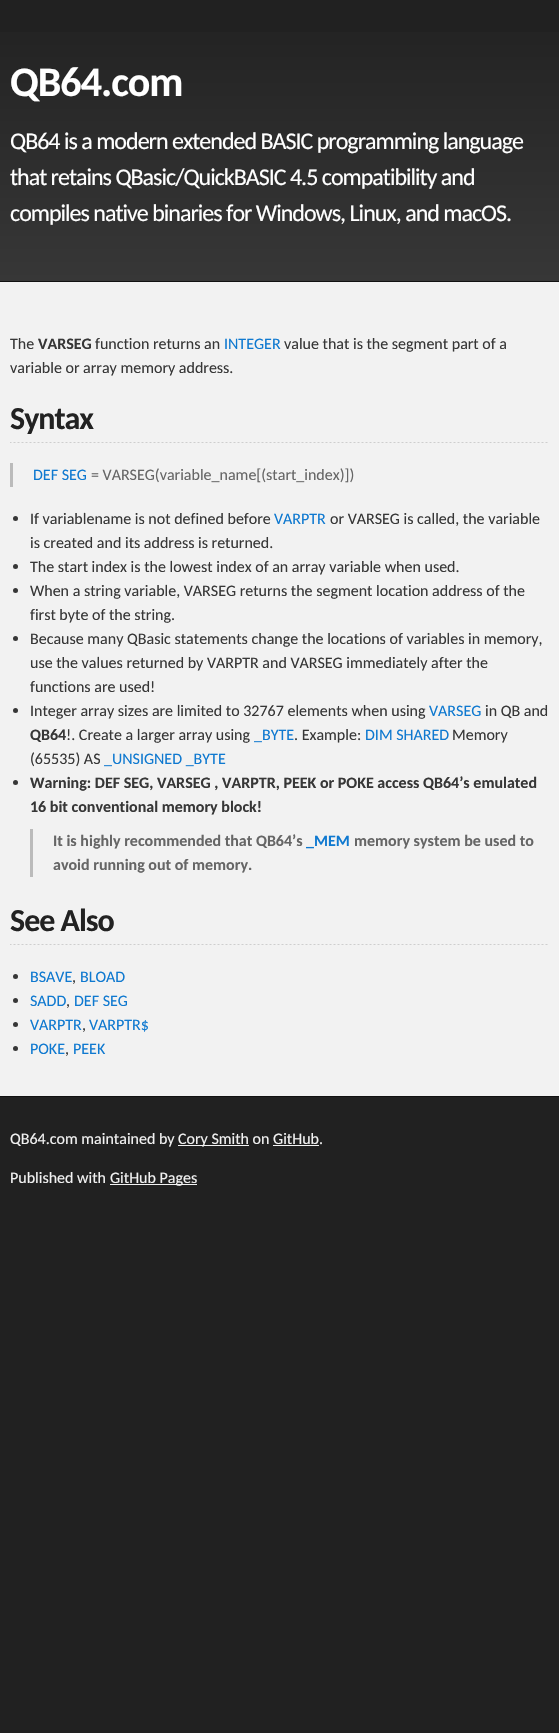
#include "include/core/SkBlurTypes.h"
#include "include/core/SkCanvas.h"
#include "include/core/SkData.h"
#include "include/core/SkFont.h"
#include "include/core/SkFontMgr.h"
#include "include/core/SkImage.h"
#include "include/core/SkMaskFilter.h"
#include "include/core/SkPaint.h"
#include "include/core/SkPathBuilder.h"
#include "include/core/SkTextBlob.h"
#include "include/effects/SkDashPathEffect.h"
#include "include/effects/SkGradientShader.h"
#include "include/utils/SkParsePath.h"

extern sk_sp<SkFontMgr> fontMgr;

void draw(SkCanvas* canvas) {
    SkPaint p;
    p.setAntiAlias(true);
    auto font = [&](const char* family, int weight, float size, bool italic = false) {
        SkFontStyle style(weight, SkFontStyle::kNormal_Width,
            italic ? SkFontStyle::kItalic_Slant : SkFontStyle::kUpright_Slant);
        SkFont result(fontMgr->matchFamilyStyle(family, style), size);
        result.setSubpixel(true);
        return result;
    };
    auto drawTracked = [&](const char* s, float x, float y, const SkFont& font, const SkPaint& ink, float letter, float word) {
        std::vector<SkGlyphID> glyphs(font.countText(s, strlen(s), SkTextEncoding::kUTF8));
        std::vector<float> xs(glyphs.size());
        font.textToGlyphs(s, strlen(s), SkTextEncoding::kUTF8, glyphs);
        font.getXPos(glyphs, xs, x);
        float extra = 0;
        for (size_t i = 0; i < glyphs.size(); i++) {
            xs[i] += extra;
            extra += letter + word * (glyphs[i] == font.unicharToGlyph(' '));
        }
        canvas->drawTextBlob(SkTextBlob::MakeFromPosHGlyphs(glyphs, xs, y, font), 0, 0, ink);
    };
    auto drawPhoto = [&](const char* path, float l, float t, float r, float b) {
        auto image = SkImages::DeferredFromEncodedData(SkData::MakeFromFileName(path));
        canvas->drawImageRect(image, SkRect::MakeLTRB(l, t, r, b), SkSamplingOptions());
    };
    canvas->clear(0xFF212121);
    {
        const SkColor colors[] = {0xFF373737, 0xFF212121};
        const float stops[] = {0, 1};
        const SkPoint ends[] = {{280, 281}, {280, 0}};
        p.setShader(SkGradientShader::MakeLinear(ends, colors, stops, 2, SkTileMode::kClamp));
        p.setAlpha(255);
    }
    canvas->drawRect(SkRect::MakeLTRB(0, 32, 559, 281), p);
    auto font1 = font("Carlito", 700, 42);
    p.setShader(nullptr);
    p.setColor(0xFFFFFFFF);
    drawTracked("QB64.com", 10, 96, font1, p, -1, 0);
    auto font2 = font("Carlito", 400, 24);
    {
        const struct { const char* s; float x, y; } items[] = {
            {"QB64 is a modern extended BASIC programming language", 10, 149},
            {"that retains QBasic/QuickBASIC 4.5 compatibility and", 10, 185},
            {"compiles native binaries for Windows, Linux, and macOS.", 10, 221},
        };
        for (auto [s, x, y] : items) {
            drawTracked(s, x, y, font2, p, -1, 0);
        }
    }
    {
        const struct { float l, t, r, b; SkColor color; } items[] = {
            {0, 282, 559, 1096, 0xFFF2F2F2},
            {0, 281, 559, 282, 0xFF111111},
            {0, 1096, 559, 1097, 0xFF111111},
        };
        for (auto [l, t, r, b, color] : items) {
            p.setColor(color);
            canvas->drawRect(SkRect::MakeLTRB(l, t, r, b), p);
        }
    }
    auto font3 = font("Carlito", 400, 16);
    p.setColor(0xFF373737);
    canvas->drawString("The", 10, 349, font3, p);
    auto font4 = font("Carlito", 700, 16);
    canvas->drawString("VARSEG", 38, 349, font4, p);
    canvas->drawString("function returns an", 95, 349, font3, p);
    p.setColor(0xFF0F79D0);
    canvas->drawString("INTEGER", 224, 349, font3, p);
    p.setColor(0xFF373737);
    canvas->drawString("value that is the segment part of a", 284, 349, font3, p);
    canvas->drawString("variable or array memory address.", 10, 373, font3, p);
    drawPhoto("media/1.png", 10, 442, 548, 443);
    auto font5 = font("Carlito", 700, 32);
    p.setColor(0xFF222222);
    drawTracked("Syntax", 10, 429, font5, p, -1, 0);
    p.setColor(0xFFBBBBBB);
    canvas->drawRect(SkRect::MakeLTRB(10, 463, 13, 487), p);
    p.setColor(0xFF0F79D0);
    canvas->drawString("DEF SEG", 33, 480, font3, p);
    p.setColor(0xFF666666);
    canvas->drawString("= VARSEG(variable_name[(start_index)])", 91, 480, font3, p);
    p.setColor(0xFF373737);
    canvas->drawCircle(15.5f, 518.5f, 2.5f, p);
    canvas->drawString("If variablename is not defined before", 30, 524, font3, p);
    p.setColor(0xFF0F79D0);
    canvas->drawString("VARPTR", 274, 524, font3, p);
    p.setColor(0xFF373737);
    canvas->drawString("or VARSEG is called, the variable", 330, 524, font3, p);
    canvas->drawString("is created and its address is returned.", 30, 548, font3, p);
    canvas->drawCircle(15.5f, 566.5f, 2.5f, p);
    canvas->drawString("The start index is the lowest index of an array variable when used.", 30, 572, font3, p);
    canvas->drawCircle(15.5f, 590.5f, 2.5f, p);
    canvas->drawString("When a string variable, VARSEG returns the segment location address of the", 30, 596, font3, p);
    canvas->drawString("first byte of the string.", 30, 620, font3, p);
    canvas->drawCircle(15.5f, 638.5f, 2.5f, p);
    {
        const struct { const char* s; float x, y; } items[] = {
            {"Because many QBasic statements change the locations of variables in memory,", 30, 644},
            {"use the values returned by VARPTR and VARSEG immediately after the", 30, 668},
            {"functions are used!", 30, 692},
        };
        for (auto [s, x, y] : items) {
            canvas->drawString(s, x, y, font3, p);
        }
    }
    canvas->drawCircle(15.5f, 710.5f, 2.5f, p);
    canvas->drawString("Integer array sizes are limited to 32767 elements when using", 30, 716, font3, p);
    p.setColor(0xFF0F79D0);
    canvas->drawString("VARSEG", 429, 716, font3, p);
    p.setColor(0xFF373737);
    canvas->drawString("in QB and", 485, 716, font3, p);
    canvas->drawString("QB64", 30, 740, font4, p);
    canvas->drawString("!. Create a larger array using", 66, 740, font3, p);
    p.setColor(0xFF0F79D0);
    canvas->drawString("_BYTE", 254, 740, font3, p);
    p.setColor(0xFF373737);
    canvas->drawString(". Example:", 294, 740, font3, p);
    p.setColor(0xFF0F79D0);
    canvas->drawString("DIM SHARED", 365, 740, font3, p);
    p.setColor(0xFF373737);
    canvas->drawString("Memory", 452, 740, font3, p);
    canvas->drawString("(65535) AS", 30, 764, font3, p);
    p.setColor(0xFF0F79D0);
    canvas->drawString("_UNSIGNED _BYTE", 104, 764, font3, p);
    p.setColor(0xFF373737);
    canvas->drawCircle(15.5f, 782.5f, 2.5f, p);
    canvas->drawString("Warning: DEF SEG, VARSEG , VARPTR, PEEK or POKE access QB64’s emulated", 30, 788, font4, p);
    canvas->drawString("16 bit conventional memory block!", 30, 812, font4, p);
    p.setColor(0xFFBBBBBB);
    canvas->drawRect(SkRect::MakeLTRB(30, 829, 33, 877), p);
    p.setColor(0xFF666666);
    canvas->drawString("It is highly recommended that QB64’s", 53, 846, font4, p);
    p.setColor(0xFF0F79D0);
    canvas->drawString("_MEM", 306, 846, font4, p);
    p.setColor(0xFF666666);
    canvas->drawString("memory system be used to", 354, 846, font4, p);
    canvas->drawString("avoid running out of memory.", 53, 870, font4, p);
    drawPhoto("media/1.png", 10, 944, 548, 945);
    p.setColor(0xFF222222);
    drawTracked("See Also", 10, 931, font5, p, -1, 0);
    p.setColor(0xFF373737);
    canvas->drawCircle(15.5f, 976.5f, 2.5f, p);
    p.setColor(0xFF0F79D0);
    canvas->drawString("BSAVE", 30, 982, font3, p);
    canvas->drawString("BLOAD", 80, 982, font3, p);
    p.setColor(0xFF373737);
    canvas->drawString(",", 72, 982, font3, p);
    canvas->drawCircle(15.5f, 1000.5f, 2.5f, p);
    p.setColor(0xFF0F79D0);
    canvas->drawString("SADD", 30, 1006, font3, p);
    canvas->drawString("DEF SEG", 74, 1006, font3, p);
    p.setColor(0xFF373737);
    canvas->drawString(",", 66, 1006, font3, p);
    canvas->drawCircle(15.5f, 1024.5f, 2.5f, p);
    p.setColor(0xFF0F79D0);
    canvas->drawString("VARPTR", 30, 1030, font3, p);
    canvas->drawString("VARPTR$", 89, 1030, font3, p);
    p.setColor(0xFF373737);
    canvas->drawString(",", 82, 1030, font3, p);
    canvas->drawCircle(15.5f, 1048.5f, 2.5f, p);
    p.setColor(0xFF0F79D0);
    canvas->drawString("POKE", 30, 1054, font3, p);
    canvas->drawString("PEEK", 73, 1054, font3, p);
    p.setColor(0xFF373737);
    canvas->drawString(",", 65, 1054, font3, p);
    p.setColor(0xFFF2F2F2);
    canvas->drawString("QB64.com maintained by", 10, 1144, font3, p);
    canvas->drawRect(SkRect::MakeLTRB(178, 1145, 249, 1146), p);
    canvas->drawString("Cory Smith on GitHub.", 178, 1144, font3, p);
    canvas->drawRect(SkRect::MakeLTRB(273, 1145, 319, 1146), p);
    canvas->drawString("Published with", 10, 1183, font3, p);
    canvas->drawRect(SkRect::MakeLTRB(110, 1184, 197, 1185), p);
    canvas->drawString("GitHub Pages", 110, 1183, font3, p);
}
